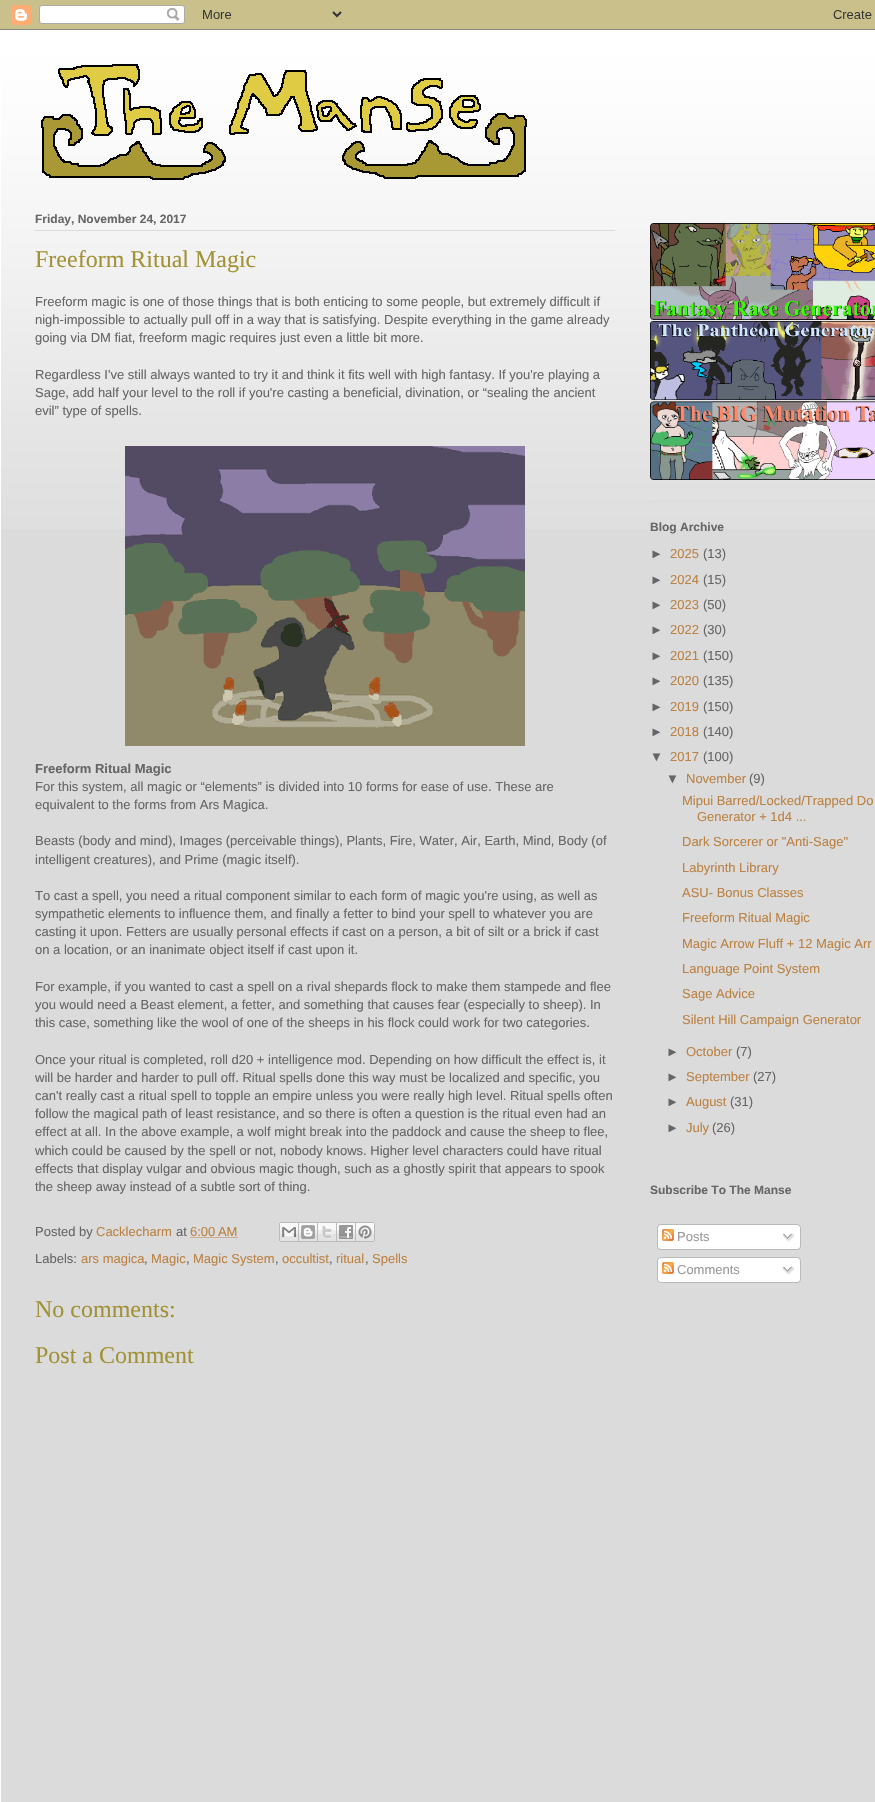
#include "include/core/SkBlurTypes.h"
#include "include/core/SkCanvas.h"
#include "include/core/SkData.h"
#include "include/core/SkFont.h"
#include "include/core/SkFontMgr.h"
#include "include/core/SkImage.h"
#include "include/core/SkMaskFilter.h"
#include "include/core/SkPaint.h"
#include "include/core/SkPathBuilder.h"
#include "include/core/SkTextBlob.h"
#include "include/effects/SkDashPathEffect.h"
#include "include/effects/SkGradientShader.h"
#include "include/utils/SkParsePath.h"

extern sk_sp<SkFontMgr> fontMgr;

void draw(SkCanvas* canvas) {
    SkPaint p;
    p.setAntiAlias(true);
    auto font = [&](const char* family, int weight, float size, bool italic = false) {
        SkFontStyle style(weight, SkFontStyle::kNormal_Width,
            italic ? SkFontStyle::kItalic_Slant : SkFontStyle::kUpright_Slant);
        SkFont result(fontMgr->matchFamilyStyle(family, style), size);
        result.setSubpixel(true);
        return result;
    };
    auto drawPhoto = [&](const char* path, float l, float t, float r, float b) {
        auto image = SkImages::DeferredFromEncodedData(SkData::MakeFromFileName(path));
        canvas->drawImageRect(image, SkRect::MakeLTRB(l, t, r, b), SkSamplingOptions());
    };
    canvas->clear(0xFFA5963D);
    drawPhoto("media/1.png", 0, 0, 875, 30);
    p.setColor(0xFFDBDBDB);
    canvas->drawRect(SkRect::MakeLTRB(1, 37, 875, 1802), p);
    drawPhoto("media/2.png", 1, 30, 875, 529);
    p.setColor(0xFFFFFFFF);
    canvas->drawRect(SkRect::MakeLTRB(0, 30, 1, 1802), p);
    drawPhoto("media/3.png", 41, 64, 527, 180);
    p.setColor(0xFFDBDBDB);
    canvas->drawRect(SkRect::MakeLTRB(35, 230, 615, 231), p);
    auto font1 = font("Liberation Sans", 700, 12);
    p.setColor(0xFF666666);
    canvas->drawString("Friday, November 24, 2017", 35, 223, font1, p);
    auto font2 = font("Liberation Serif", 400, 24);
    p.setColor(0xFFA19237);
    canvas->drawString("Freeform Ritual Magic", 35, 267, font2, p);
    auto font3 = font("Liberation Sans", 400, 13);
    p.setColor(0xFF666666);
    {
        const struct { const char* s; float x, y; } items[] = {
            {"Freeform magic is one of those things that is both enticing to some people, but extremely difficult if", 35, 306},
            {"nigh-impossible to actually pull off in a way that is satisfying. Despite everything in the game already", 35, 324},
            {"going via DM fiat, freeform magic requires just even a little bit more.", 35, 342},
            {"Regardless I've still always wanted to try it and think it fits well with high fantasy. If you're playing a", 35, 379},
            {"Sage, add half your level to the roll if you're casting a beneficial, divination, or “sealing the ancient", 35, 397},
            {"evil” type of spells.", 35, 415},
        };
        for (auto [s, x, y] : items) {
            canvas->drawString(s, x, y, font3, p);
        }
    }
    drawPhoto("media/4.png", 125, 446, 525, 746);
    auto font4 = font("Liberation Sans", 700, 13);
    canvas->drawString("Freeform Ritual Magic", 35, 773, font4, p);
    {
        const struct { const char* s; float x, y; } items[] = {
            {"For this system, all magic or “elements” is divided into 10 forms for ease of use. These are", 35, 791},
            {"equivalent to the forms from Ars Magica.", 35, 809},
            {"Beasts (body and mind), Images (perceivable things), Plants, Fire, Water, Air, Earth, Mind, Body (of", 35, 845},
            {"intelligent creatures), and Prime (magic itself).", 35, 864},
            {"To cast a spell, you need a ritual component similar to each form of magic you're using, as well as", 35, 900},
            {"sympathetic elements to influence them, and finally a fetter to bind your spell to whatever you are", 35, 918},
            {"casting it upon. Fetters are usually personal effects if cast on a person, a bit of silt or a brick if cast", 35, 936},
            {"on a location, or an inanimate object itself if cast upon it.", 35, 954},
            {"For example, if you wanted to cast a spell on a rival shepards flock to make them stampede and flee", 35, 991},
            {"you would need a Beast element, a fetter, and something that causes fear (especially to sheep). In", 35, 1009},
            {"this case, something like the wool of one of the sheeps in his flock could work for two categories.", 35, 1027},
            {"Once your ritual is completed, roll d20 + intelligence mod. Depending on how difficult the effect is, it", 35, 1064},
            {"will be harder and harder to pull off. Ritual spells done this way must be localized and specific, you", 35, 1082},
            {"can't really cast a ritual spell to topple an empire unless you were really high level. Ritual spells often", 35, 1100},
            {"follow the magical path of least resistance, and so there is often a question is the ritual even had an", 35, 1118},
            {"effect at all. In the above example, a wolf might break into the paddock and cause the sheep to flee,", 35, 1136},
            {"which could be caused by the spell or not, nobody knows. Higher level characters could have ritual", 35, 1155},
            {"effects that display vulgar and obvious magic though, such as a ghostly spirit that appears to spook", 35, 1173},
            {"the sheep away instead of a subtle sort of thing.", 35, 1191},
            {"Posted by", 35, 1236},
        };
        for (auto [s, x, y] : items) {
            canvas->drawString(s, x, y, font3, p);
        }
    }
    p.setColor(0xFFBB8243);
    canvas->drawString("Cacklecharm", 96, 1236, font3, p);
    p.setColor(0xFF666666);
    canvas->drawString("at", 176, 1236, font3, p);
    p.setColor(0xFFBB8243);
    canvas->drawString("6:00 AM", 190, 1236, font3, p);
    p.setStyle(SkPaint::kStroke_Style);
    p.setStrokeWidth(1);
    p.setPathEffect(SkDashPathEffect::Make({{1, 1}}, 0));
    canvas->drawPath(SkPathBuilder().moveTo(190.5f, 1237.5f).lineTo(238, 1237.5f).detach(), p);
    p.setPathEffect(nullptr);
    drawPhoto("media/5.png", 279, 1222, 299, 1242);
    drawPhoto("media/6.png", 299, 1222, 318, 1242);
    drawPhoto("media/7.png", 318, 1222, 337, 1242);
    drawPhoto("media/8.png", 337, 1222, 356, 1242);
    drawPhoto("media/9.png", 356, 1222, 375, 1242);
    p.setStyle(SkPaint::kFill_Style);
    p.setColor(0xFF666666);
    canvas->drawString("Labels:", 35, 1263, font3, p);
    p.setColor(0xFFBB8243);
    canvas->drawString("ars magica", 81, 1263, font3, p);
    p.setColor(0xFF666666);
    canvas->drawString(",", 144, 1263, font3, p);
    p.setColor(0xFFBB8243);
    canvas->drawString("Magic", 151, 1263, font3, p);
    p.setColor(0xFF666666);
    canvas->drawString(",", 186, 1263, font3, p);
    p.setColor(0xFFBB8243);
    canvas->drawString("Magic System", 193, 1263, font3, p);
    p.setColor(0xFF666666);
    canvas->drawString(",", 275, 1263, font3, p);
    p.setColor(0xFFBB8243);
    canvas->drawString("occultist", 282, 1263, font3, p);
    p.setColor(0xFF666666);
    canvas->drawString(",", 329, 1263, font3, p);
    p.setColor(0xFFBB8243);
    canvas->drawString("ritual", 336, 1263, font3, p);
    p.setColor(0xFF666666);
    canvas->drawString(",", 365, 1263, font3, p);
    p.setColor(0xFFBB8243);
    canvas->drawString("Spells", 372, 1263, font3, p);
    p.setColor(0xFFA19237);
    canvas->drawString("No comments:", 35, 1317, font2, p);
    canvas->drawString("Post a Comment", 35, 1363, font2, p);
    drawPhoto("media/10.png", 650, 223, 875, 320);
    drawPhoto("media/11.png", 650, 321, 875, 400);
    p.setColor(0xFFDBDBDB);
    canvas->drawRect(SkRect::MakeLTRB(650, 501, 875, 502), p);
    drawPhoto("media/12.png", 650, 401, 875, 480);
    p.setColor(0xFF666666);
    canvas->drawString("Blog Archive", 650, 531, font1, p);
    canvas->drawString("►", 650, 558, font3, p);
    p.setColor(0xFFBB8243);
    canvas->drawString("2025", 670, 558, font3, p);
    p.setColor(0xFF666666);
    canvas->drawString("(13)", 703, 558, font3, p);
    canvas->drawString("►", 650, 584, font3, p);
    p.setColor(0xFFBB8243);
    canvas->drawString("2024", 670, 584, font3, p);
    p.setColor(0xFF666666);
    canvas->drawString("(15)", 703, 584, font3, p);
    canvas->drawString("►", 650, 609, font3, p);
    p.setColor(0xFFBB8243);
    canvas->drawString("2023", 670, 609, font3, p);
    p.setColor(0xFF666666);
    canvas->drawString("(50)", 703, 609, font3, p);
    canvas->drawString("►", 650, 634, font3, p);
    p.setColor(0xFFBB8243);
    canvas->drawString("2022", 670, 634, font3, p);
    p.setColor(0xFF666666);
    canvas->drawString("(30)", 703, 634, font3, p);
    canvas->drawString("►", 650, 660, font3, p);
    p.setColor(0xFFBB8243);
    canvas->drawString("2021", 670, 660, font3, p);
    p.setColor(0xFF666666);
    canvas->drawString("(150)", 703, 660, font3, p);
    canvas->drawString("►", 650, 685, font3, p);
    p.setColor(0xFFBB8243);
    canvas->drawString("2020", 670, 685, font3, p);
    p.setColor(0xFF666666);
    canvas->drawString("(135)", 703, 685, font3, p);
    canvas->drawString("►", 650, 711, font3, p);
    p.setColor(0xFFBB8243);
    canvas->drawString("2019", 670, 711, font3, p);
    p.setColor(0xFF666666);
    canvas->drawString("(150)", 703, 711, font3, p);
    canvas->drawString("►", 650, 736, font3, p);
    p.setColor(0xFFBB8243);
    canvas->drawString("2018", 670, 736, font3, p);
    p.setColor(0xFF666666);
    canvas->drawString("(140)", 703, 736, font3, p);
    canvas->drawString("▼", 650, 761, font3, p);
    p.setColor(0xFFBB8243);
    canvas->drawString("2017", 670, 761, font3, p);
    p.setColor(0xFF666666);
    canvas->drawString("(100)", 703, 761, font3, p);
    canvas->drawString("▼", 666, 783, font3, p);
    p.setColor(0xFFBB8243);
    canvas->drawString("November", 686, 783, font3, p);
    p.setColor(0xFF666666);
    canvas->drawString("(9)", 749, 783, font3, p);
    p.setColor(0xFFBB8243);
    {
        const struct { const char* s; float x, y; } items[] = {
            {"Mipui Barred/Locked/Trapped Do", 682, 805},
            {"Generator + 1d4 ...", 697, 821},
            {"Dark Sorcerer or \"Anti-Sage\"", 682, 846},
            {"Labyrinth Library", 682, 872},
            {"ASU- Bonus Classes", 682, 897},
            {"Freeform Ritual Magic", 682, 922},
            {"Magic Arrow Fluff + 12 Magic Arr", 682, 948},
            {"Language Point System", 682, 973},
            {"Sage Advice", 682, 998},
            {"Silent Hill Campaign Generator", 682, 1024},
        };
        for (auto [s, x, y] : items) {
            canvas->drawString(s, x, y, font3, p);
        }
    }
    p.setColor(0xFF666666);
    canvas->drawString("►", 666, 1056, font3, p);
    p.setColor(0xFFBB8243);
    canvas->drawString("October", 686, 1056, font3, p);
    p.setColor(0xFF666666);
    canvas->drawString("(7)", 736, 1056, font3, p);
    canvas->drawString("►", 666, 1081, font3, p);
    p.setColor(0xFFBB8243);
    canvas->drawString("September", 686, 1081, font3, p);
    p.setColor(0xFF666666);
    canvas->drawString("(27)", 753, 1081, font3, p);
    canvas->drawString("►", 666, 1106, font3, p);
    p.setColor(0xFFBB8243);
    canvas->drawString("August", 686, 1106, font3, p);
    p.setColor(0xFF666666);
    canvas->drawString("(31)", 730, 1106, font3, p);
    canvas->drawString("►", 666, 1132, font3, p);
    p.setColor(0xFFBB8243);
    canvas->drawString("July", 686, 1132, font3, p);
    p.setColor(0xFF666666);
    canvas->drawString("(26)", 712, 1132, font3, p);
    canvas->drawString("Subscribe To The Manse", 650, 1194, font1, p);
    drawPhoto("media/13.png", 657, 1224, 801, 1247);
    drawPhoto("media/14.png", 662, 1229, 674, 1241);
    p.setColor(0xFF999999);
    canvas->drawString("Posts", 677, 1241, font3, p);
    drawPhoto("media/15.png", 782, 1233, 795, 1242);
    drawPhoto("media/16.png", 657, 1247, 801, 1250);
    drawPhoto("media/13.png", 657, 1257, 801, 1280);
    drawPhoto("media/14.png", 662, 1262, 674, 1274);
    canvas->drawString("Comments", 677, 1274, font3, p);
    drawPhoto("media/15.png", 782, 1266, 795, 1275);
    drawPhoto("media/16.png", 657, 1280, 801, 1283);
}
